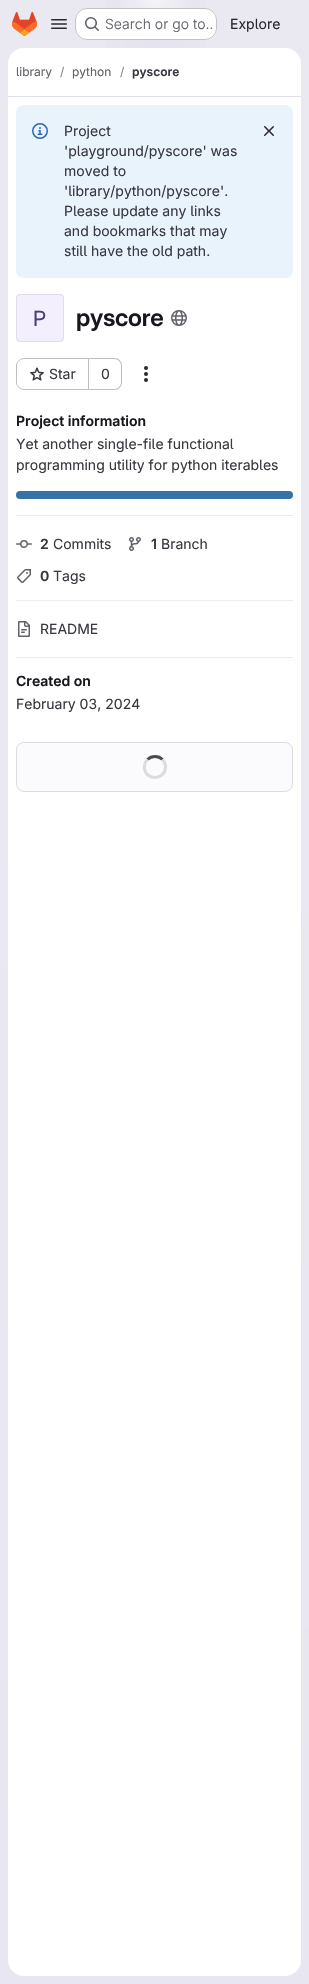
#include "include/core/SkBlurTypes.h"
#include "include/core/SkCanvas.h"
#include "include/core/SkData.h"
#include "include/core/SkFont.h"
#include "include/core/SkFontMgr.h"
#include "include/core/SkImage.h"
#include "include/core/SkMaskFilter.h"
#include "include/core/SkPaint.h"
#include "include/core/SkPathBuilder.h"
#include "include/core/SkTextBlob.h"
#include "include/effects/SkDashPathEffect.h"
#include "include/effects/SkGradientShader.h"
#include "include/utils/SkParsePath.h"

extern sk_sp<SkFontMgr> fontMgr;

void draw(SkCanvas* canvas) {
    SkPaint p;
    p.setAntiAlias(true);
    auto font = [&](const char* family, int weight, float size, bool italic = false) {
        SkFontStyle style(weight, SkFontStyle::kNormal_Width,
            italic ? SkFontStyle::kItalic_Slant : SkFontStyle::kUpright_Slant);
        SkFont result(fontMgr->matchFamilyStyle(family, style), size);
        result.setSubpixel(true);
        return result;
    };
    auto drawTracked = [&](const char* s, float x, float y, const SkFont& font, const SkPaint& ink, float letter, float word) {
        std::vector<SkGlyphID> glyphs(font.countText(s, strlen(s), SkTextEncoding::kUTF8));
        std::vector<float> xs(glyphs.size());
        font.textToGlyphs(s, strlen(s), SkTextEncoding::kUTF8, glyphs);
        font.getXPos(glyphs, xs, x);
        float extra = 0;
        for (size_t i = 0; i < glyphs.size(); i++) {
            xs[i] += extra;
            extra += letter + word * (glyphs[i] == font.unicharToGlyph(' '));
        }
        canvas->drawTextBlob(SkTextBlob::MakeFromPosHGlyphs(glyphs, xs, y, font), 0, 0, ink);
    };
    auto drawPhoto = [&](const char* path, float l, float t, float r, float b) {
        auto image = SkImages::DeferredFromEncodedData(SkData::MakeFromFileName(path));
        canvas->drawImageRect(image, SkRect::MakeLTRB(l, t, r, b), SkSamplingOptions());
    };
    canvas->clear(0xFFFFFFFF);
    {
        const SkColor colors[] = {0xFFE8E6F0, 0xFFEAE9F2};
        const float stops[] = {0, 0.7f};
        const SkPoint ends[] = {{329, 1981}, {-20, 3.5f}};
        p.setShader(SkGradientShader::MakeLinear(ends, colors, stops, 2, SkTileMode::kClamp));
        p.setAlpha(255);
    }
    canvas->drawRect(SkRect::MakeLTRB(0, 0, 309, 1984), p);
    {
        const SkColor colors[] = {0xFFE4E2ED, 0x00E4E2ED};
        const float stops[] = {0, 0.45f};
        SkMatrix m = SkMatrix::Translate(155, 0).preScale(155, 1984);
        p.setShader(SkGradientShader::MakeRadial({0, 0}, 1, colors, stops, 2, SkTileMode::kClamp, 0, &m));
        p.setAlpha(255);
    }
    canvas->drawRect(SkRect::MakeLTRB(105, 0, 205, 48), p);
    {
        const SkColor colors[] = {0xFFE4E2EC, 0x00E4E2EC};
        const float stops[] = {0, 0.32f};
        SkMatrix m = SkMatrix::Translate(155, 0).preScale(155, 1984);
        p.setShader(SkGradientShader::MakeRadial({0, 0}, 1, colors, stops, 2, SkTileMode::kClamp, 0, &m));
        p.setAlpha(255);
    }
    canvas->drawRect(SkRect::MakeLTRB(134, 0, 176, 40), p);
    {
        const SkColor colors[] = {0x99FFFFFF, 0x00FFFFFF};
        const float stops[] = {0, 0.02f};
        p.setShader(SkGradientShader::MakeRadial({155, 0}, 1990, colors, stops, 2, SkTileMode::kClamp));
        p.setAlpha(255);
    }
    canvas->drawRect(SkRect::MakeLTRB(117, 0, 193, 8), p);
    drawPhoto("media/1.png", 12, 12, 37, 36);
    drawPhoto("media/2.png", 51, 19, 67, 29);
    p.setShader(nullptr);
    p.setColor(0xFFFFFFFF);
    canvas->drawRoundRect(SkRect::MakeLTRB(75, 8, 217, 40), 12, 12, p);
    p.setStyle(SkPaint::kStroke_Style);
    p.setStrokeWidth(1);
    p.setColor(0x3D050506);
    canvas->drawRoundRect(SkRect::MakeLTRB(75.5f, 8.5f, 216.5f, 39.5f), 11.5f, 11.5f, p);
    drawPhoto("media/3.png", 85, 17, 99, 31);
    canvas->save();
    canvas->clipRect(SkRect::MakeLTRB(84, 14, 212, 34));
    auto font1 = font("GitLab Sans", 300, 14);
    p.setStyle(SkPaint::kFill_Style);
    p.setColor(0xFF626168);
    canvas->drawString("Search or go to…", 105, 29, font1, p);
    canvas->restore();
    auto font2 = font("GitLab Sans", 400, 14);
    p.setColor(0xFF28272D);
    canvas->drawString("Explore", 230, 29, font2, p);
    p.setColor(0xFFFFFFFF);
    canvas->drawRoundRect(SkRect::MakeLTRB(8, 48, 301, 1976), 16, 16, p);
    canvas->drawPath(SkPathBuilder().moveTo(24, 48).lineTo(285, 48).cubicTo(294, 48, 301, 55, 301, 64).lineTo(301, 97).lineTo(8, 97).lineTo(8, 64).cubicTo(8, 55, 15, 48, 24, 48).close().detach(), p);
    p.setColor(0xFFE1DFEC);
    canvas->drawRect(SkRect::MakeLTRB(8, 96, 301, 97), p);
    auto font3 = font("GitLab Sans", 400, 12);
    p.setColor(0xFF626168);
    canvas->drawString("library", 16, 76, font3, p);
    p.setColor(0xFF89888D);
    canvas->drawString("/", 60, 76, font3, p);
    p.setColor(0xFF626168);
    canvas->drawString("python", 72, 76, font3, p);
    p.setColor(0xFF89888D);
    canvas->drawString("/", 120, 76, font3, p);
    auto font4 = font("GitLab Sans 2", 600, 12);
    p.setColor(0xFF3A383F);
    canvas->drawString("pyscore", 132, 76, font4, p);
    p.setColor(0xFFE9F3FC);
    canvas->drawRoundRect(SkRect::MakeLTRB(16, 105, 293, 278), 8, 8, p);
    drawPhoto("media/4.png", 32, 123, 48, 139);
    p.setColor(0xFF3A383F);
    {
        const struct { const char* s; float x, y; } items[] = {
            {"Project", 64, 136},
            {"'playground/pyscore' was", 64, 156},
            {"moved to", 64, 176},
            {"'library/python/pyscore'.", 64, 196},
            {"Please update any links", 64, 216},
            {"and bookmarks that may", 64, 236},
            {"still have the old path.", 64, 256},
        };
        for (auto [s, x, y] : items) {
            canvas->drawString(s, x, y, font2, p);
        }
    }
    drawPhoto("media/5.png", 264, 126, 274, 136);
    p.setColor(0xFFF3EFFC);
    canvas->drawRoundRect(SkRect::MakeLTRB(16, 294, 64, 342), 4, 4, p);
    p.setStyle(SkPaint::kStroke_Style);
    p.setColor(0x14050506);
    canvas->drawRoundRect(SkRect::MakeLTRB(16.5f, 294.5f, 63.5f, 341.5f), 3.5f, 3.5f, p);
    auto font5 = font("GitLab Sans 2", 400, 21);
    p.setStyle(SkPaint::kFill_Style);
    p.setColor(0xFF493C83);
    canvas->drawString("P", 33, 326, font5, p);
    auto font6 = font("GitLab Sans", 600, 24);
    p.setColor(0xFF18171D);
    drawTracked("pyscore", 76, 326, font6, p, -0.25f, 0);
    drawPhoto("media/6.png", 171, 310, 187, 326);
    p.setColor(0xFFBFBFC3);
    canvas->drawPath(SkPathBuilder(SkPathFillType::kEvenOdd).moveTo(24, 358).lineTo(88, 358).lineTo(88, 390).lineTo(24, 390).cubicTo(20, 390, 16, 386, 16, 382).lineTo(16, 366).cubicTo(16, 362, 20, 358, 24, 358).close().moveTo(24, 359).lineTo(88, 359).lineTo(88, 389).lineTo(24, 389).cubicTo(20, 389, 17, 386, 17, 382).lineTo(17, 366).cubicTo(17, 362, 20, 359, 24, 359).close().detach(), p);
    drawPhoto("media/7.png", 30, 367, 44, 381);
    p.setColor(0xFF3A383F);
    canvas->drawString("Star", 49, 379, font2, p);
    p.setColor(0xFFBFBFC3);
    canvas->drawPath(SkPathBuilder(SkPathFillType::kEvenOdd).moveTo(89, 358).lineTo(114, 358).cubicTo(118.5f, 358, 122, 361.5f, 122, 366).lineTo(122, 382).cubicTo(122, 386.5f, 118.5f, 390, 114, 390).lineTo(89, 390).close().moveTo(89, 359).lineTo(114, 359).cubicTo(118, 359, 121, 362, 121, 366).lineTo(121, 382).cubicTo(121, 386, 118, 389, 114, 389).lineTo(89, 389).close().detach(), p);
    canvas->drawRect(SkRect::MakeLTRB(88, 358, 89, 390), p);
    p.setColor(0xFF3A383F);
    canvas->drawString("0", 101, 379, font2, p);
    drawPhoto("media/8.png", 144, 366, 148, 382);
    p.setColor(0xFFECECEF);
    canvas->drawRect(SkRect::MakeLTRB(16, 515, 293, 516), p);
    auto font7 = font("GitLab Sans 2", 600, 14);
    p.setColor(0xFF18171D);
    canvas->drawString("Project information", 16, 426, font7, p);
    p.setColor(0xFF3A383F);
    canvas->drawString("Yet another single-file functional", 16, 449, font2, p);
    canvas->drawString("programming utility for python iterables", 16, 470, font2, p);
    p.setColor(0xFF3572A5);
    canvas->drawRoundRect(SkRect::MakeLTRB(16, 491, 293, 499), 4, 4, p);
    p.setColor(0xFFECECEF);
    canvas->drawRect(SkRect::MakeLTRB(16, 600, 293, 601), p);
    drawPhoto("media/9.png", 16, 540, 32, 548);
    p.setColor(0xFF3A383F);
    canvas->drawString("2", 40, 549, font7, p);
    canvas->drawString("Commits", 53, 549, font2, p);
    drawPhoto("media/10.png", 129, 537, 141, 551);
    canvas->drawString("1", 151, 549, font7, p);
    canvas->drawString("Branch", 161, 549, font2, p);
    drawPhoto("media/11.png", 17, 569, 31, 583);
    canvas->drawString("0", 40, 581, font7, p);
    canvas->drawString("Tags", 53, 581, font2, p);
    p.setColor(0xFFECECEF);
    canvas->drawRect(SkRect::MakeLTRB(16, 657, 293, 658), p);
    drawPhoto("media/12.png", 18, 621, 30, 637);
    p.setColor(0xFF3A383F);
    canvas->drawString("README", 40, 634, font2, p);
    p.setColor(0xFF18171D);
    canvas->drawString("Created on", 16, 686, font7, p);
    p.setColor(0xFF3A383F);
    canvas->drawString("February 03, 2024", 16, 709, font2, p);
    p.setColor(0xFFFBFAFD);
    canvas->drawRoundRect(SkRect::MakeLTRB(16.5f, 742.5f, 292.5f, 791.5f), 7.5f, 7.5f, p);
    p.setStyle(SkPaint::kStroke_Style);
    p.setColor(0xFFDCDCDE);
    canvas->drawRoundRect(SkRect::MakeLTRB(16.5f, 742.5f, 292.5f, 791.5f), 7.5f, 7.5f, p);
    p.setStrokeWidth(3);
    p.setColor(0xFF4C4B51);
    canvas->drawPath(SkPathBuilder().moveTo(147.5f, 759.5f).cubicTo(151.5f, 755.5f, 158.5f, 755.5f, 162.5f, 759.5f).detach(), p);
    p.setColor(0xFFDCDCDE);
    canvas->drawPath(SkPathBuilder().moveTo(162.5f, 759.5f).cubicTo(164.5f, 761.5f, 165.5f, 764, 165.5f, 767).cubicTo(165.5f, 779.5f, 147, 781.5f, 144.5f, 769).cubicTo(144, 765.5f, 145, 762, 147.5f, 759.5f).detach(), p);
}
